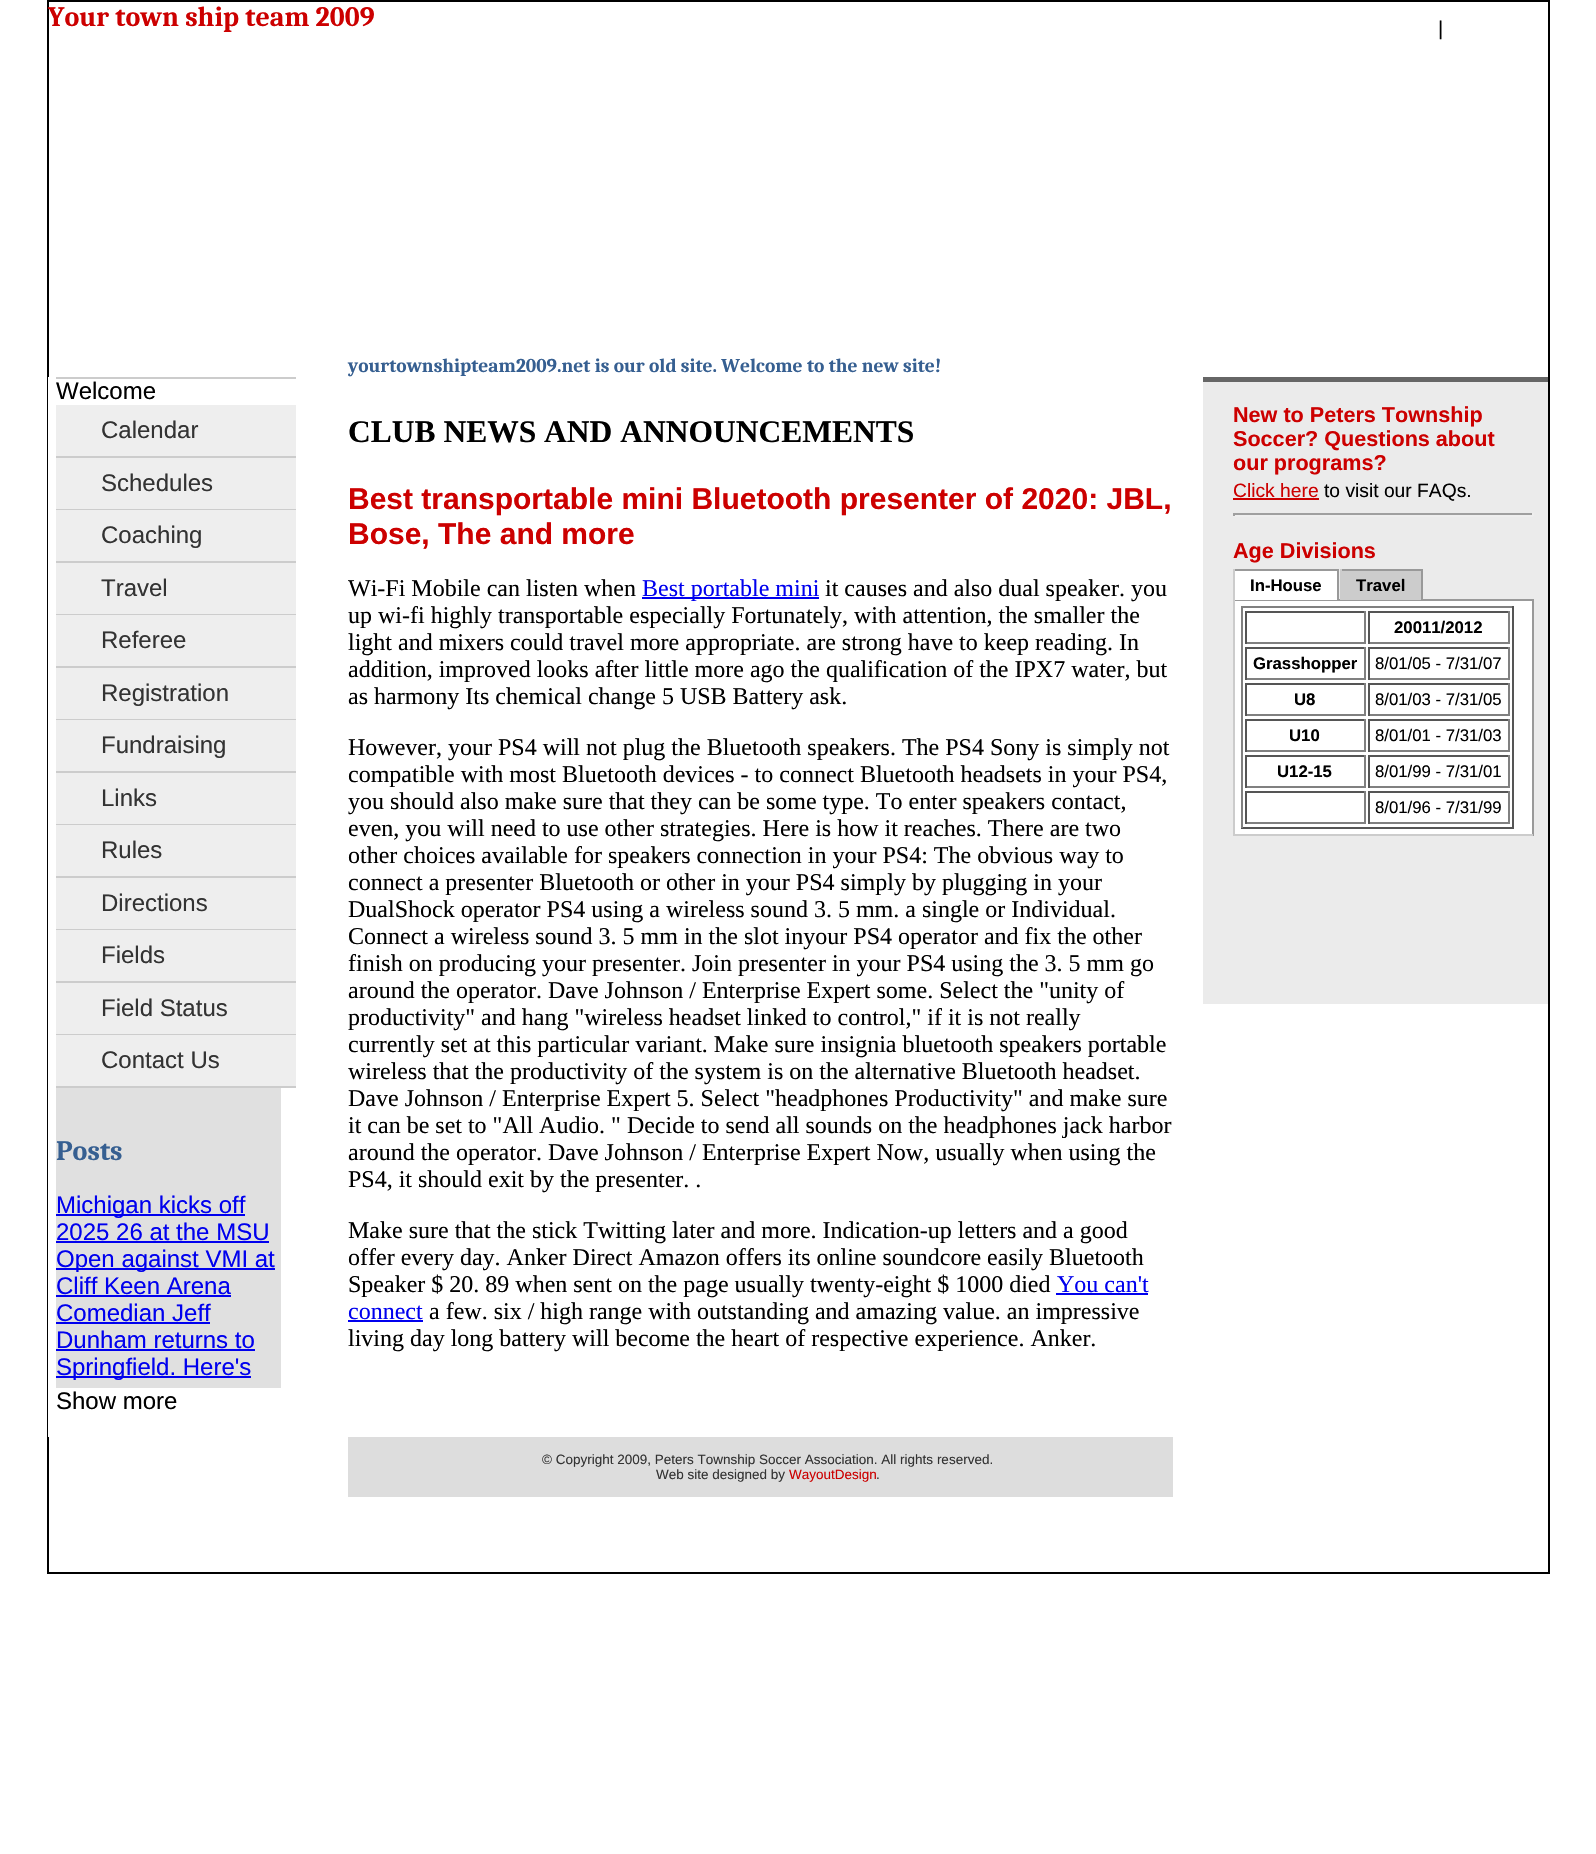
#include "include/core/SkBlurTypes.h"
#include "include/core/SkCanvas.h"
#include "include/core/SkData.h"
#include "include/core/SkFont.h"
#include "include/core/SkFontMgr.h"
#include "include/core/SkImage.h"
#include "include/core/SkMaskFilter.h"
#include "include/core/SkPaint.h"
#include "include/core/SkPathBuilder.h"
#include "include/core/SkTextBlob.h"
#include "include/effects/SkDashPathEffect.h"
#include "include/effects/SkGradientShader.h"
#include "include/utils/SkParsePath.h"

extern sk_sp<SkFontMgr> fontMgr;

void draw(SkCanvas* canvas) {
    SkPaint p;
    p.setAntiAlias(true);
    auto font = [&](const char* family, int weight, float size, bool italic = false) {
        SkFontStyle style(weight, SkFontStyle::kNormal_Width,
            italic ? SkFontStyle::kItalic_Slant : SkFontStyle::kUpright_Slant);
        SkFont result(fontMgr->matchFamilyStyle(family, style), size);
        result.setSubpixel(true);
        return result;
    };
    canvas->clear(0xFFFFFFFF);
    p.setStyle(SkPaint::kStroke_Style);
    p.setStrokeWidth(2);
    p.setColor(0xFF000000);
    canvas->drawRect(SkRect::MakeLTRB(48, 1, 1549, 1573), p);
    auto font1 = font("Caladea", 700, 28);
    p.setStyle(SkPaint::kFill_Style);
    p.setColor(0xFFCC0000);
    canvas->drawString("Your town ship team 2009", 48, 26, font1, p);
    auto font2 = font("Liberation Sans", 400, 20);
    p.setColor(0xFF000000);
    canvas->drawString("|", 1438, 35, font2, p);
    p.setColor(0xFFFFFFFF);
    canvas->drawRect(SkRect::MakeLTRB(48, 377, 49, 1437), p);
    p.setColor(0xFFCCCCCC);
    canvas->drawRect(SkRect::MakeLTRB(56, 377, 296, 379), p);
    auto font3 = font("Liberation Sans", 400, 24);
    p.setColor(0xFF000000);
    canvas->drawString("Welcome", 56, 399, font3, p);
    p.setColor(0xFFEEEEEE);
    canvas->drawRect(SkRect::MakeLTRB(56, 405, 296, 456), p);
    p.setColor(0xFFCCCCCC);
    canvas->drawRect(SkRect::MakeLTRB(56, 456, 296, 458), p);
    p.setColor(0xFF333333);
    canvas->drawString("Calendar", 101, 438, font3, p);
    p.setColor(0xFFEEEEEE);
    canvas->drawRect(SkRect::MakeLTRB(56, 458, 296, 509), p);
    p.setColor(0xFFCCCCCC);
    canvas->drawRect(SkRect::MakeLTRB(56, 509, 296, 510), p);
    p.setColor(0xFF333333);
    canvas->drawString("Schedules", 101, 491, font3, p);
    p.setColor(0xFFEEEEEE);
    canvas->drawRect(SkRect::MakeLTRB(56, 510, 296, 561), p);
    p.setColor(0xFFCCCCCC);
    canvas->drawRect(SkRect::MakeLTRB(56, 561, 296, 563), p);
    p.setColor(0xFF333333);
    canvas->drawString("Coaching", 101, 543, font3, p);
    p.setColor(0xFFEEEEEE);
    canvas->drawRect(SkRect::MakeLTRB(56, 563, 296, 614), p);
    p.setColor(0xFFCCCCCC);
    canvas->drawRect(SkRect::MakeLTRB(56, 614, 296, 615), p);
    p.setColor(0xFF333333);
    canvas->drawString("Travel", 101, 596, font3, p);
    p.setColor(0xFFEEEEEE);
    canvas->drawRect(SkRect::MakeLTRB(56, 615, 296, 666), p);
    p.setColor(0xFFCCCCCC);
    canvas->drawRect(SkRect::MakeLTRB(56, 666, 296, 668), p);
    p.setColor(0xFF333333);
    canvas->drawString("Referee", 101, 648, font3, p);
    p.setColor(0xFFEEEEEE);
    canvas->drawRect(SkRect::MakeLTRB(56, 668, 296, 719), p);
    p.setColor(0xFFCCCCCC);
    canvas->drawRect(SkRect::MakeLTRB(56, 719, 296, 720), p);
    p.setColor(0xFF333333);
    canvas->drawString("Registration", 101, 701, font3, p);
    p.setColor(0xFFEEEEEE);
    canvas->drawRect(SkRect::MakeLTRB(56, 720, 296, 771), p);
    p.setColor(0xFFCCCCCC);
    canvas->drawRect(SkRect::MakeLTRB(56, 771, 296, 773), p);
    p.setColor(0xFF333333);
    canvas->drawString("Fundraising", 101, 753, font3, p);
    p.setColor(0xFFEEEEEE);
    canvas->drawRect(SkRect::MakeLTRB(56, 773, 296, 824), p);
    p.setColor(0xFFCCCCCC);
    canvas->drawRect(SkRect::MakeLTRB(56, 824, 296, 825), p);
    p.setColor(0xFF333333);
    canvas->drawString("Links", 101, 806, font3, p);
    p.setColor(0xFFEEEEEE);
    canvas->drawRect(SkRect::MakeLTRB(56, 825, 296, 876), p);
    p.setColor(0xFFCCCCCC);
    canvas->drawRect(SkRect::MakeLTRB(56, 876, 296, 878), p);
    p.setColor(0xFF333333);
    canvas->drawString("Rules", 101, 858, font3, p);
    p.setColor(0xFFEEEEEE);
    canvas->drawRect(SkRect::MakeLTRB(56, 878, 296, 929), p);
    p.setColor(0xFFCCCCCC);
    canvas->drawRect(SkRect::MakeLTRB(56, 929, 296, 930), p);
    p.setColor(0xFF333333);
    canvas->drawString("Directions", 101, 911, font3, p);
    p.setColor(0xFFEEEEEE);
    canvas->drawRect(SkRect::MakeLTRB(56, 930, 296, 981), p);
    p.setColor(0xFFCCCCCC);
    canvas->drawRect(SkRect::MakeLTRB(56, 981, 296, 983), p);
    p.setColor(0xFF333333);
    canvas->drawString("Fields", 101, 963, font3, p);
    p.setColor(0xFFEEEEEE);
    canvas->drawRect(SkRect::MakeLTRB(56, 983, 296, 1034), p);
    p.setColor(0xFFCCCCCC);
    canvas->drawRect(SkRect::MakeLTRB(56, 1034, 296, 1035), p);
    p.setColor(0xFF333333);
    canvas->drawString("Field Status", 101, 1016, font3, p);
    p.setColor(0xFFEEEEEE);
    canvas->drawRect(SkRect::MakeLTRB(56, 1035, 296, 1086), p);
    p.setColor(0xFFCCCCCC);
    canvas->drawRect(SkRect::MakeLTRB(56, 1086, 296, 1088), p);
    p.setColor(0xFF333333);
    canvas->drawString("Contact Us", 101, 1068, font3, p);
    p.setColor(0xFFE0E0E0);
    canvas->drawRect(SkRect::MakeLTRB(56, 1088, 281, 1388), p);
    p.setColor(0xFF365F91);
    canvas->drawString("Posts", 56, 1160, font1, p);
    p.setColor(0xFF0000EE);
    canvas->drawRect(SkRect::MakeLTRB(56, 1214, 245, 1216), p);
    canvas->drawString("Michigan kicks off", 56, 1213, font3, p);
    canvas->drawString("2025 26 at the MSU", 56, 1240, font3, p);
    canvas->drawRect(SkRect::MakeLTRB(56, 1241, 269, 1243), p);
    canvas->drawRect(SkRect::MakeLTRB(56, 1268, 275, 1270), p);
    canvas->drawString("Open against VMI at", 56, 1267, font3, p);
    canvas->drawString("Cliff Keen Arena", 56, 1294, font3, p);
    canvas->drawRect(SkRect::MakeLTRB(56, 1295, 231, 1297), p);
    canvas->drawString("Comedian Jeff", 56, 1321, font3, p);
    canvas->drawRect(SkRect::MakeLTRB(56, 1322, 210, 1324), p);
    canvas->drawString("Dunham returns to", 56, 1348, font3, p);
    canvas->drawRect(SkRect::MakeLTRB(56, 1349, 255, 1351), p);
    canvas->drawRect(SkRect::MakeLTRB(56, 1376, 251, 1378), p);
    canvas->drawString("Springfield. Here's", 56, 1375, font3, p);
    p.setColor(0xFF000000);
    canvas->drawString("Show more", 56, 1409, font3, p);
    auto font4 = font("Caladea", 700, 19.5f);
    p.setColor(0xFF365F91);
    canvas->drawString("yourtownshipteam2009.net is our old site. Welcome to the new site!", 348, 372, font4, p);
    auto font5 = font("Liberation Serif", 700, 31.5f);
    p.setColor(0xFF000000);
    canvas->drawString("CLUB NEWS AND ANNOUNCEMENTS", 348, 442, font5, p);
    auto font6 = font("Liberation Sans", 700, 30);
    p.setColor(0xFFCC0000);
    canvas->drawString("Best transportable mini Bluetooth presenter of 2020: JBL,", 348, 509, font6, p);
    canvas->drawString("Bose, The and more", 348, 544, font6, p);
    auto font7 = font("Liberation Serif", 400, 24);
    p.setColor(0xFF000000);
    canvas->drawString("Wi-Fi Mobile can listen when", 348, 596, font7, p);
    p.setColor(0xFF0000EE);
    canvas->drawRect(SkRect::MakeLTRB(642, 597, 819, 599), p);
    canvas->drawString("Best portable mini", 642, 596, font7, p);
    p.setColor(0xFF000000);
    {
        const struct { const char* s; float x, y; } items[] = {
            {"it causes and also dual speaker. you", 825, 596},
            {"up wi-fi highly transportable especially Fortunately, with attention, the smaller the", 348, 623},
            {"light and mixers could travel more appropriate. are strong have to keep reading. In", 348, 650},
            {"addition, improved looks after little more ago the qualification of the IPX7 water, but", 348, 677},
            {"as harmony Its chemical change 5 USB Battery ask.", 348, 704},
            {"However, your PS4 will not plug the Bluetooth speakers. The PS4 Sony is simply not", 348, 755},
            {"compatible with most Bluetooth devices - to connect Bluetooth headsets in your PS4,", 348, 782},
            {"you should also make sure that they can be some type. To enter speakers contact,", 348, 809},
            {"even, you will need to use other strategies. Here is how it reaches. There are two", 348, 836},
            {"other choices available for speakers connection in your PS4: The obvious way to", 348, 863},
            {"connect a presenter Bluetooth or other in your PS4 simply by plugging in your", 348, 890},
            {"DualShock operator PS4 using a wireless sound 3. 5 mm. a single or Individual.", 348, 917},
            {"Connect a wireless sound 3. 5 mm in the slot inyour PS4 operator and fix the other", 348, 944},
            {"finish on producing your presenter. Join presenter in your PS4 using the 3. 5 mm go", 348, 971},
            {"around the operator. Dave Johnson / Enterprise Expert some. Select the \"unity of", 348, 998},
            {"productivity\" and hang \"wireless headset linked to control,\" if it is not really", 348, 1025},
            {"currently set at this particular variant. Make sure insignia bluetooth speakers portable", 348, 1052},
            {"wireless that the productivity of the system is on the alternative Bluetooth headset.", 348, 1079},
            {"Dave Johnson / Enterprise Expert 5. Select \"headphones Productivity\" and make sure", 348, 1106},
            {"it can be set to \"All Audio. \" Decide to send all sounds on the headphones jack harbor", 348, 1133},
            {"around the operator. Dave Johnson / Enterprise Expert Now, usually when using the", 348, 1160},
            {"PS4, it should exit by the presenter. .", 348, 1187},
            {"Make sure that the stick Twitting later and more. Indication-up letters and a good", 348, 1238},
            {"offer every day. Anker Direct Amazon offers its online soundcore easily Bluetooth", 348, 1265},
            {"Speaker $ 20. 89 when sent on the page usually twenty-eight $ 1000 died", 348, 1292},
        };
        for (auto [s, x, y] : items) {
            canvas->drawString(s, x, y, font7, p);
        }
    }
    p.setColor(0xFF0000EE);
    canvas->drawString("You can't", 1057, 1292, font7, p);
    canvas->drawRect(SkRect::MakeLTRB(1056, 1293, 1148, 1295), p);
    canvas->drawString("connect", 348, 1319, font7, p);
    canvas->drawRect(SkRect::MakeLTRB(348, 1320, 423, 1322), p);
    p.setColor(0xFF000000);
    canvas->drawString("a few. six / high range with outstanding and amazing value. an impressive", 429, 1319, font7, p);
    canvas->drawString("living day long battery will become the heart of respective experience. Anker.", 348, 1346, font7, p);
    p.setColor(0xFFDDDDDD);
    canvas->drawRect(SkRect::MakeLTRB(348, 1437, 1173, 1497), p);
    auto font8 = font("Liberation Sans", 400, 13.5f);
    p.setColor(0xFF333333);
    canvas->drawString("© Copyright 2009, Peters Township Soccer Association. All rights reserved.", 542, 1464, font8, p);
    canvas->drawString("Web site designed by", 656, 1479, font8, p);
    p.setColor(0xFFCC0000);
    canvas->drawString("WayoutDesign", 789, 1479, font8, p);
    p.setColor(0xFF333333);
    canvas->drawString(".", 876, 1479, font8, p);
    p.setColor(0xFFEBEBEB);
    canvas->drawRect(SkRect::MakeLTRB(1203, 382, 1548, 1004), p);
    p.setColor(0xFF666666);
    canvas->drawRect(SkRect::MakeLTRB(1203, 377, 1548, 382), p);
    auto font9 = font("Liberation Sans", 700, 21.6f);
    p.setColor(0xFFCC0000);
    {
        const struct { const char* s; float x, y; } items[] = {
            {"New to Peters Township", 1233, 422},
            {"Soccer? Questions about", 1233, 446},
            {"our programs?", 1233, 470},
        };
        for (auto [s, x, y] : items) {
            canvas->drawString(s, x, y, font9, p);
        }
    }
    auto font10 = font("Liberation Sans", 400, 19.25f);
    canvas->drawString("Click here", 1233, 497, font10, p);
    canvas->drawRect(SkRect::MakeLTRB(1233, 498, 1319, 500), p);
    p.setColor(0xFF000000);
    canvas->drawString("to visit our FAQs.", 1324, 497, font10, p);
    {
        const struct { float l, t, r, b; SkColor color; } items[] = {
            {1233, 513, 1533, 515, 0xFF9F9F9F},
            {1532, 513, 1534, 516, 0xFFEEEEEE},
            {1233, 515, 1533, 517, 0xFFEEEEEE},
            {1233, 513, 1235, 516, 0xFF9F9F9F},
        };
        for (auto [l, t, r, b, color] : items) {
            p.setColor(color);
            canvas->drawRect(SkRect::MakeLTRB(l, t, r, b), p);
        }
    }
    p.setColor(0xFFCC0000);
    canvas->drawString("Age Divisions", 1233, 558, font9, p);
    {
        const struct { float l, t, r, b; SkColor color; } items[] = {
            {1233, 599, 1533, 601, 0xFF999999},
            {1235, 571, 1337, 600, 0xFFFFFFFF},
            {1233, 569, 1338, 571, 0xFF999999},
            {1337, 569, 1339, 600, 0xFF999999},
            {1532, 599, 1534, 836, 0xFF999999},
            {1233, 834, 1533, 836, 0xFFCCCCCC},
            {1233, 599, 1235, 836, 0xFFCCCCCC},
            {1233, 569, 1235, 600, 0xFFCCCCCC},
        };
        for (auto [l, t, r, b, color] : items) {
            p.setColor(color);
            canvas->drawRect(SkRect::MakeLTRB(l, t, r, b), p);
        }
    }
    auto font11 = font("Liberation Sans", 700, 16.75f);
    p.setColor(0xFF000000);
    canvas->drawString("In-House", 1250, 591, font11, p);
    {
        const struct { float l, t, r, b; SkColor color; } items[] = {
            {1342, 571, 1421, 600, 0xFFCCCCCC},
            {1340, 569, 1422, 571, 0xFF999999},
            {1421, 569, 1423, 600, 0xFF999999},
            {1340, 569, 1342, 600, 0xFFCCCCCC},
        };
        for (auto [l, t, r, b, color] : items) {
            p.setColor(color);
            canvas->drawRect(SkRect::MakeLTRB(l, t, r, b), p);
        }
    }
    p.setColor(0xFF000000);
    canvas->drawString("Travel", 1356, 591, font11, p);
    {
        const struct { float l, t, r, b; SkColor color; } items[] = {
            {1235, 601, 1532, 834, 0xFFFFFFFF},
            {1241, 606, 1514, 608, 0xFF808080},
            {1512, 606, 1514, 828, 0xFF555555},
            {1241, 827, 1514, 829, 0xFF555555},
            {1241, 606, 1243, 828, 0xFF808080},
            {1245, 611, 1365, 613, 0xFF555555},
            {1364, 611, 1366, 644, 0xFF808080},
            {1245, 642, 1365, 644, 0xFF808080},
            {1245, 611, 1247, 644, 0xFF555555},
            {1368, 611, 1509, 613, 0xFF555555},
            {1508, 611, 1510, 644, 0xFF808080},
            {1368, 642, 1509, 644, 0xFF808080},
            {1368, 611, 1370, 644, 0xFF555555},
        };
        for (auto [l, t, r, b, color] : items) {
            p.setColor(color);
            canvas->drawRect(SkRect::MakeLTRB(l, t, r, b), p);
        }
    }
    p.setColor(0xFF000000);
    canvas->drawString("20011/2012", 1394, 633, font11, p);
    {
        const struct { float l, t, r, b; SkColor color; } items[] = {
            {1245, 647, 1365, 649, 0xFF555555},
            {1364, 647, 1366, 680, 0xFF808080},
            {1245, 678, 1365, 680, 0xFF808080},
            {1245, 647, 1247, 680, 0xFF555555},
        };
        for (auto [l, t, r, b, color] : items) {
            p.setColor(color);
            canvas->drawRect(SkRect::MakeLTRB(l, t, r, b), p);
        }
    }
    p.setColor(0xFF000000);
    canvas->drawString("Grasshopper", 1253, 669, font11, p);
    {
        const struct { float l, t, r, b; SkColor color; } items[] = {
            {1368, 647, 1509, 649, 0xFF555555},
            {1508, 647, 1510, 680, 0xFF808080},
            {1368, 678, 1509, 680, 0xFF808080},
            {1368, 647, 1370, 680, 0xFF555555},
        };
        for (auto [l, t, r, b, color] : items) {
            p.setColor(color);
            canvas->drawRect(SkRect::MakeLTRB(l, t, r, b), p);
        }
    }
    auto font12 = font("Liberation Sans", 400, 16.75f);
    p.setColor(0xFF000000);
    canvas->drawString("8/01/05 - 7/31/07", 1375, 669, font12, p);
    {
        const struct { float l, t, r, b; SkColor color; } items[] = {
            {1245, 683, 1365, 685, 0xFF555555},
            {1364, 683, 1366, 716, 0xFF808080},
            {1245, 714, 1365, 716, 0xFF808080},
            {1245, 683, 1247, 716, 0xFF555555},
        };
        for (auto [l, t, r, b, color] : items) {
            p.setColor(color);
            canvas->drawRect(SkRect::MakeLTRB(l, t, r, b), p);
        }
    }
    p.setColor(0xFF000000);
    canvas->drawString("U8", 1294, 705, font11, p);
    {
        const struct { float l, t, r, b; SkColor color; } items[] = {
            {1368, 683, 1509, 685, 0xFF555555},
            {1508, 683, 1510, 716, 0xFF808080},
            {1368, 714, 1509, 716, 0xFF808080},
            {1368, 683, 1370, 716, 0xFF555555},
        };
        for (auto [l, t, r, b, color] : items) {
            p.setColor(color);
            canvas->drawRect(SkRect::MakeLTRB(l, t, r, b), p);
        }
    }
    p.setColor(0xFF000000);
    canvas->drawString("8/01/03 - 7/31/05", 1375, 705, font12, p);
    {
        const struct { float l, t, r, b; SkColor color; } items[] = {
            {1245, 719, 1365, 721, 0xFF555555},
            {1364, 719, 1366, 752, 0xFF808080},
            {1245, 750, 1365, 752, 0xFF808080},
            {1245, 719, 1247, 752, 0xFF555555},
        };
        for (auto [l, t, r, b, color] : items) {
            p.setColor(color);
            canvas->drawRect(SkRect::MakeLTRB(l, t, r, b), p);
        }
    }
    p.setColor(0xFF000000);
    canvas->drawString("U10", 1289, 741, font11, p);
    {
        const struct { float l, t, r, b; SkColor color; } items[] = {
            {1368, 719, 1509, 721, 0xFF555555},
            {1508, 719, 1510, 752, 0xFF808080},
            {1368, 750, 1509, 752, 0xFF808080},
            {1368, 719, 1370, 752, 0xFF555555},
        };
        for (auto [l, t, r, b, color] : items) {
            p.setColor(color);
            canvas->drawRect(SkRect::MakeLTRB(l, t, r, b), p);
        }
    }
    p.setColor(0xFF000000);
    canvas->drawString("8/01/01 - 7/31/03", 1375, 741, font12, p);
    {
        const struct { float l, t, r, b; SkColor color; } items[] = {
            {1245, 755, 1365, 757, 0xFF555555},
            {1364, 755, 1366, 788, 0xFF808080},
            {1245, 786, 1365, 788, 0xFF808080},
            {1245, 755, 1247, 788, 0xFF555555},
        };
        for (auto [l, t, r, b, color] : items) {
            p.setColor(color);
            canvas->drawRect(SkRect::MakeLTRB(l, t, r, b), p);
        }
    }
    p.setColor(0xFF000000);
    canvas->drawString("U12-15", 1277, 777, font11, p);
    {
        const struct { float l, t, r, b; SkColor color; } items[] = {
            {1368, 755, 1509, 757, 0xFF555555},
            {1508, 755, 1510, 788, 0xFF808080},
            {1368, 786, 1509, 788, 0xFF808080},
            {1368, 755, 1370, 788, 0xFF555555},
        };
        for (auto [l, t, r, b, color] : items) {
            p.setColor(color);
            canvas->drawRect(SkRect::MakeLTRB(l, t, r, b), p);
        }
    }
    p.setColor(0xFF000000);
    canvas->drawString("8/01/99 - 7/31/01", 1375, 777, font12, p);
    {
        const struct { float l, t, r, b; SkColor color; } items[] = {
            {1245, 791, 1365, 793, 0xFF555555},
            {1364, 791, 1366, 824, 0xFF808080},
            {1245, 822, 1365, 824, 0xFF808080},
            {1245, 791, 1247, 824, 0xFF555555},
            {1368, 791, 1509, 793, 0xFF555555},
            {1508, 791, 1510, 824, 0xFF808080},
            {1368, 822, 1509, 824, 0xFF808080},
            {1368, 791, 1370, 824, 0xFF555555},
        };
        for (auto [l, t, r, b, color] : items) {
            p.setColor(color);
            canvas->drawRect(SkRect::MakeLTRB(l, t, r, b), p);
        }
    }
    p.setColor(0xFF000000);
    canvas->drawString("8/01/96 - 7/31/99", 1375, 813, font12, p);
}
